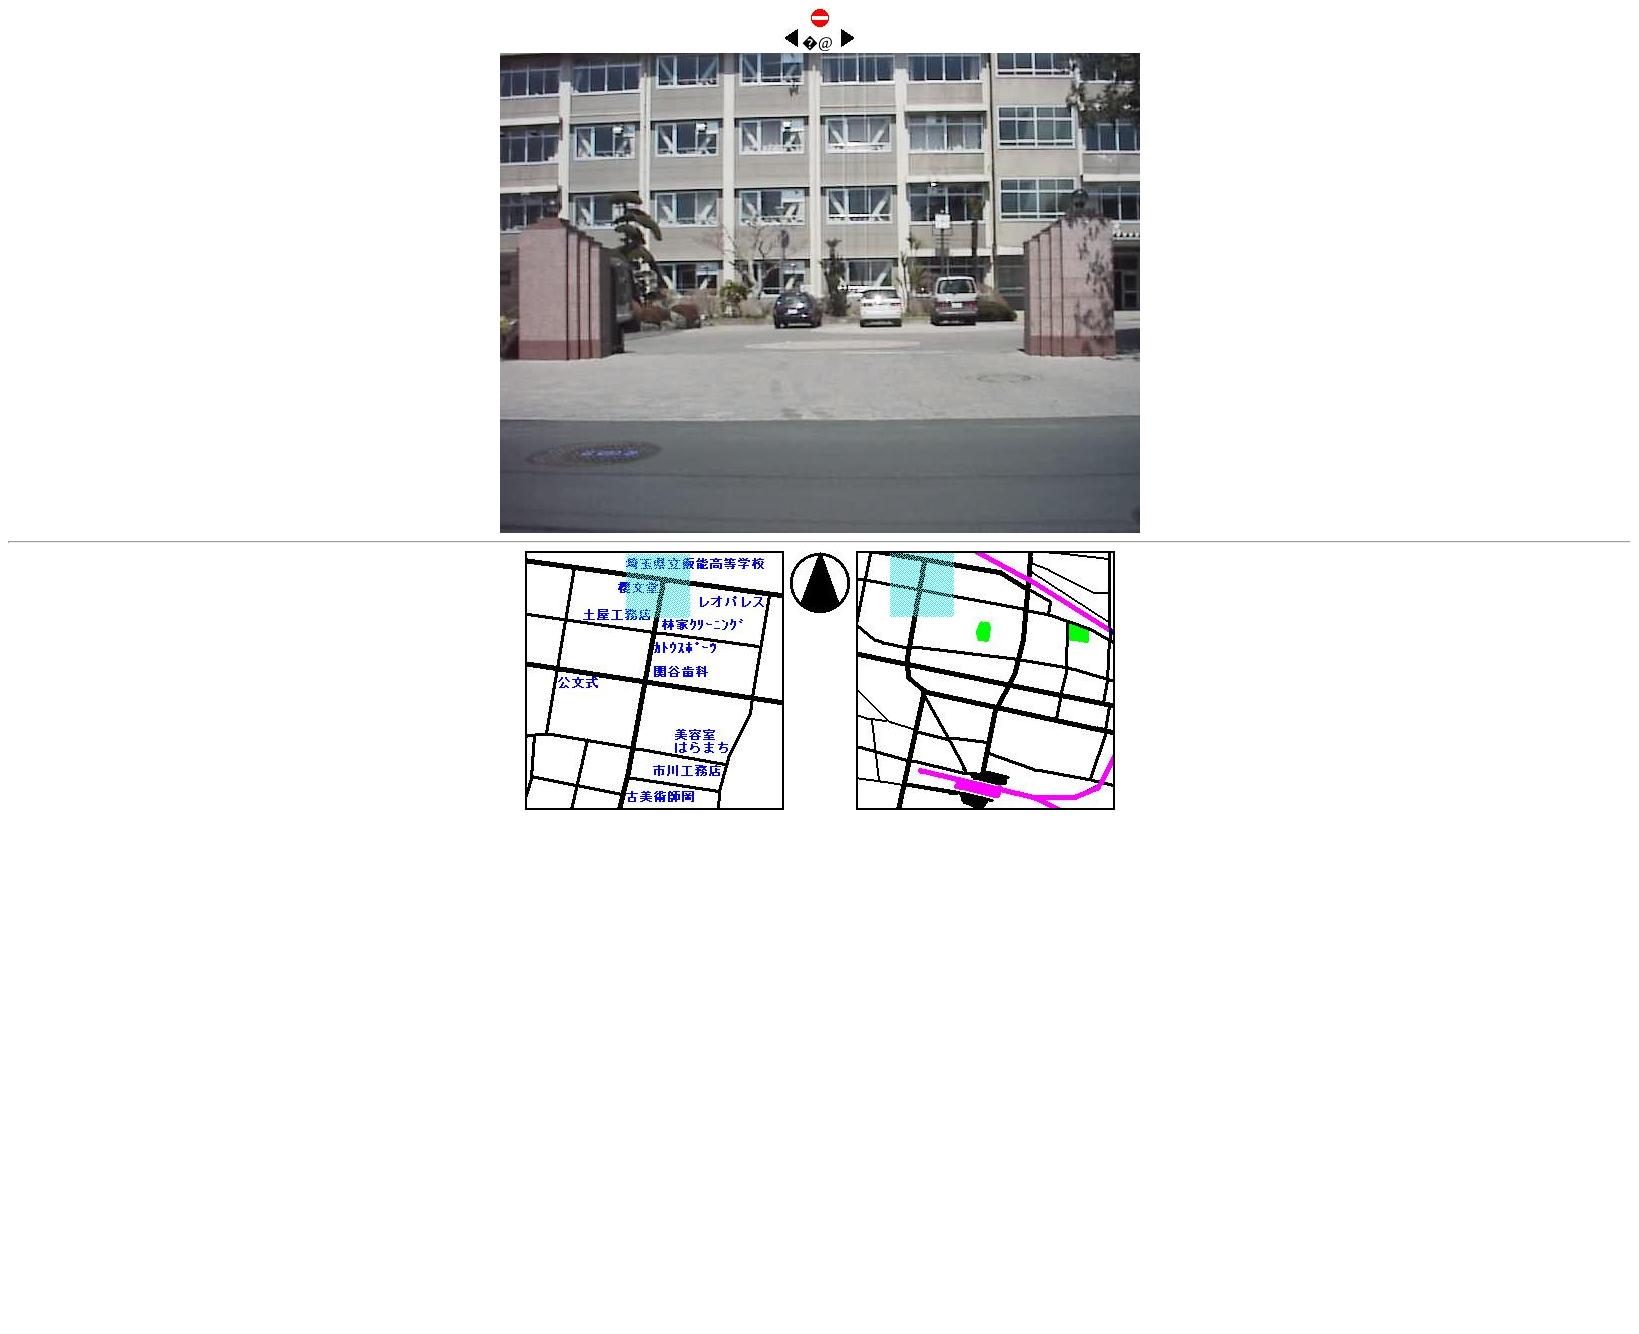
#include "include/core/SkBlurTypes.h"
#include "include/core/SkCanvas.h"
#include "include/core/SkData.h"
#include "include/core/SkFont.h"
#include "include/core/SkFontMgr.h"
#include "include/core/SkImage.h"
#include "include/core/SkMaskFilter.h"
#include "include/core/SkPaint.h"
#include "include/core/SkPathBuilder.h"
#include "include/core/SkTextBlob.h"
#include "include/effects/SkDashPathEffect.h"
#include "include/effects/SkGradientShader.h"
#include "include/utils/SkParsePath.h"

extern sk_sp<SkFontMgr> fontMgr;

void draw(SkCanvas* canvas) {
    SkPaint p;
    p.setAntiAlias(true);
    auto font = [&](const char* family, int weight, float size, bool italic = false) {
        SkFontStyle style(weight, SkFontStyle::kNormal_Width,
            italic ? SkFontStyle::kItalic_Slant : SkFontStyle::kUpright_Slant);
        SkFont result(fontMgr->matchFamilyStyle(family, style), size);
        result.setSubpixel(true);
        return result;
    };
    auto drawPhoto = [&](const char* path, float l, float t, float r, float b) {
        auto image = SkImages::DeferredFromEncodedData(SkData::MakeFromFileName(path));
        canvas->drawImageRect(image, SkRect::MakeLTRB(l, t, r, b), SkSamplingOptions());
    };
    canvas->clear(0xFFFFFFFF);
    drawPhoto("media/1.png", 810, 8, 830, 28);
    drawPhoto("media/2.png", 782, 28, 802, 48);
    auto font1 = font("Noto Sans", 400, 16);
    p.setColor(0xFF000000);
    canvas->drawString("�", 802, 48, font1, p);
    auto font2 = font("Liberation Serif", 400, 16);
    canvas->drawString("@", 818, 48, font2, p);
    drawPhoto("media/3.png", 837, 28, 857, 48);
    drawPhoto("media/4.png", 500, 53, 1140, 533);
    {
        const struct { float l, t, r, b; SkColor color; } items[] = {
            {8, 541, 1631, 542, 0xFF9F9F9F},
            {1630, 541, 1631, 543, 0xFFEEEEEE},
            {8, 542, 1631, 543, 0xFFEEEEEE},
            {8, 541, 9, 543, 0xFF9F9F9F},
        };
        for (auto [l, t, r, b, color] : items) {
            p.setColor(color);
            canvas->drawRect(SkRect::MakeLTRB(l, t, r, b), p);
        }
    }
    p.setStyle(SkPaint::kStroke_Style);
    p.setStrokeWidth(2);
    p.setColor(0xFF000000);
    canvas->drawRect(SkRect::MakeLTRB(526, 552, 783, 809), p);
    drawPhoto("media/5.png", 788, 551, 852, 615);
    canvas->drawRect(SkRect::MakeLTRB(857, 552, 1114, 809), p);
    drawPhoto("media/6.png", 527, 553, 782, 808);
    drawPhoto("media/7.png", 858, 553, 1113, 808);
}
